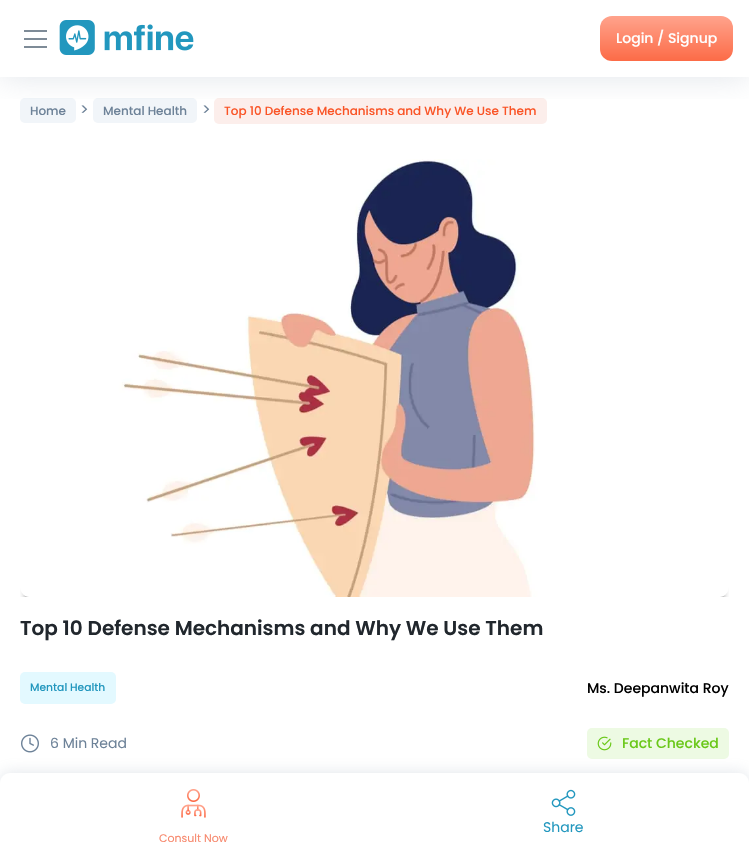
#include "include/core/SkBlurTypes.h"
#include "include/core/SkCanvas.h"
#include "include/core/SkData.h"
#include "include/core/SkFont.h"
#include "include/core/SkFontMgr.h"
#include "include/core/SkImage.h"
#include "include/core/SkMaskFilter.h"
#include "include/core/SkPaint.h"
#include "include/core/SkPathBuilder.h"
#include "include/core/SkTextBlob.h"
#include "include/effects/SkDashPathEffect.h"
#include "include/effects/SkGradientShader.h"
#include "include/utils/SkParsePath.h"

extern sk_sp<SkFontMgr> fontMgr;

void draw(SkCanvas* canvas) {
    SkPaint p;
    p.setAntiAlias(true);
    auto font = [&](const char* family, int weight, float size, bool italic = false) {
        SkFontStyle style(weight, SkFontStyle::kNormal_Width,
            italic ? SkFontStyle::kItalic_Slant : SkFontStyle::kUpright_Slant);
        SkFont result(fontMgr->matchFamilyStyle(family, style), size);
        result.setSubpixel(true);
        return result;
    };
    auto drawPhoto = [&](const char* path, float l, float t, float r, float b) {
        auto image = SkImages::DeferredFromEncodedData(SkData::MakeFromFileName(path));
        canvas->drawImageRect(image, SkRect::MakeLTRB(l, t, r, b), SkSamplingOptions());
    };
    canvas->clear(0xFFFFFFFF);
    p.setColor(0xFFF1F5F9);
    canvas->drawRoundRect(SkRect::MakeLTRB(20, 98, 76, 123), 5, 5, p);
    canvas->drawRoundRect(SkRect::MakeLTRB(93, 98, 197, 123), 5, 5, p);
    p.setColor(0xFFFCEEEB);
    canvas->drawRoundRect(SkRect::MakeLTRB(214, 98, 547, 124), 5, 5, p);
    canvas->save();
    canvas->clipRect(SkRect::MakeLTRB(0, 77, 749, 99));
    p.setColor(0x408495A6);
    p.setMaskFilter(SkMaskFilter::MakeBlur(kNormal_SkBlurStyle, 16));
    canvas->drawRect(SkRect::MakeLTRB(0, 0, 749, 77), p);
    p.setMaskFilter(nullptr);
    canvas->restore();
    {
        const struct { float l, t, r, b; SkColor color; } items[] = {
            {24, 30, 47, 32, 0xFF7E8B97},
            {24, 38, 47, 40, 0xFF7E8B97},
            {24, 46, 47, 48, 0xFF7E8B97},
        };
        for (auto [l, t, r, b, color] : items) {
            p.setColor(color);
            canvas->drawRect(SkRect::MakeLTRB(l, t, r, b), p);
        }
    }
    drawPhoto("media/1.png", 59, 20, 194, 55);
    {
        const SkColor colors[] = {0xFFFFA38C, 0xFFFC6B47};
        const float stops[] = {0, 1};
        const SkPoint ends[] = {{667, 16}, {667, 61}};
        p.setShader(SkGradientShader::MakeLinear(ends, colors, stops, 2, SkTileMode::kClamp));
        p.setAlpha(255);
    }
    canvas->drawRoundRect(SkRect::MakeLTRB(600, 16, 733, 61), 12, 12, p);
    auto font1 = font("Poppins", 500, 14);
    p.setShader(nullptr);
    p.setColor(0xFFFFFFFF);
    canvas->drawString("Login / Signup", 616, 43, font1, p);
    auto font2 = font("Poppins", 500, 12);
    p.setColor(0xFF6D8298);
    canvas->drawString("Home", 30, 115, font2, p);
    auto font3 = font("Poppins", 400, 16);
    canvas->drawString(">", 80, 115, font3, p);
    canvas->drawString("Mental Health", 103, 115, font2, p);
    canvas->drawString(">", 202, 115, font3, p);
    p.setColor(0xFFFA5426);
    canvas->drawString("Top 10 Defense Mechanisms and Why We Use Them", 224, 115, font2, p);
    canvas->save();
    canvas->clipRect(SkRect::MakeLTRB(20, 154, 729, 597));
    canvas->clipPath(SkPathBuilder(SkPathFillType::kEvenOdd).moveTo(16, 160).lineTo(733, 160).lineTo(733, 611).lineTo(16, 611).close().moveTo(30, 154).lineTo(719, 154).cubicTo(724.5f, 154, 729, 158.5f, 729, 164).lineTo(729, 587).cubicTo(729, 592.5f, 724.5f, 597, 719, 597).lineTo(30, 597).cubicTo(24.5f, 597, 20, 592.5f, 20, 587).lineTo(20, 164).cubicTo(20, 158.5f, 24.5f, 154, 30, 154).close().detach(), true);
    p.setColor(0xFF777777);
    p.setMaskFilter(SkMaskFilter::MakeBlur(kNormal_SkBlurStyle, 3));
    canvas->drawRoundRect(SkRect::MakeLTRB(26, 170, 723, 601), 4, 4, p);
    p.setMaskFilter(nullptr);
    canvas->restore();
    drawPhoto("media/2.png", 23, 159, 726, 597);
    auto font4 = font("Poppins", 600, 20);
    p.setColor(0xFF21272D);
    canvas->drawString("Top 10 Defense Mechanisms and Why We Use Them", 20, 635, font4, p);
    p.setColor(0xFFE3F9FF);
    canvas->drawRoundRect(SkRect::MakeLTRB(20, 672, 116, 704), 5, 5, p);
    auto font5 = font("Poppins", 500, 10.75f);
    p.setColor(0xFF2297BE);
    canvas->drawString("Mental Health", 30, 691, font5, p);
    p.setColor(0xFF000000);
    canvas->drawString("Ms. Deepanwita Roy", 587, 693, font1, p);
    drawPhoto("media/3.png", 21, 734, 39, 753);
    auto font6 = font("Poppins", 400, 14);
    p.setColor(0xFF6D8298);
    canvas->drawString("6 Min Read", 50, 748, font6, p);
    p.setColor(0xFFEDFAE3);
    canvas->drawRoundRect(SkRect::MakeLTRB(587, 728, 729, 759), 5, 5, p);
    drawPhoto("media/4.png", 597, 736, 612, 751);
    p.setColor(0xFF6AC819);
    canvas->drawString("Fact Checked", 622, 748, font1, p);
    p.setColor(0x408495A6);
    p.setMaskFilter(SkMaskFilter::MakeBlur(kNormal_SkBlurStyle, 8));
    canvas->drawRoundRect(SkRect::MakeLTRB(0, 773, 749, 843), 10, 10, p);
    p.setMaskFilter(nullptr);
    p.setColor(0xFFFFFFFF);
    canvas->drawPath(SkPathBuilder().moveTo(10, 773).lineTo(739, 773).cubicTo(744.5f, 773, 749, 777.5f, 749, 783).lineTo(749, 843).lineTo(0, 843).lineTo(0, 783).cubicTo(0, 777.5f, 4.5f, 773, 10, 773).close().detach(), p);
    drawPhoto("media/5.png", 551, 789, 576, 816);
    p.setColor(0xFF2297BE);
    canvas->drawString("Share", 543, 832, font6, p);
    drawPhoto("media/6.png", 181, 789, 206, 818);
    auto font7 = font("Poppins", 400, 11);
    p.setColor(0xFFF7896E);
    canvas->drawString("Consult Now", 159, 842, font7, p);
}
